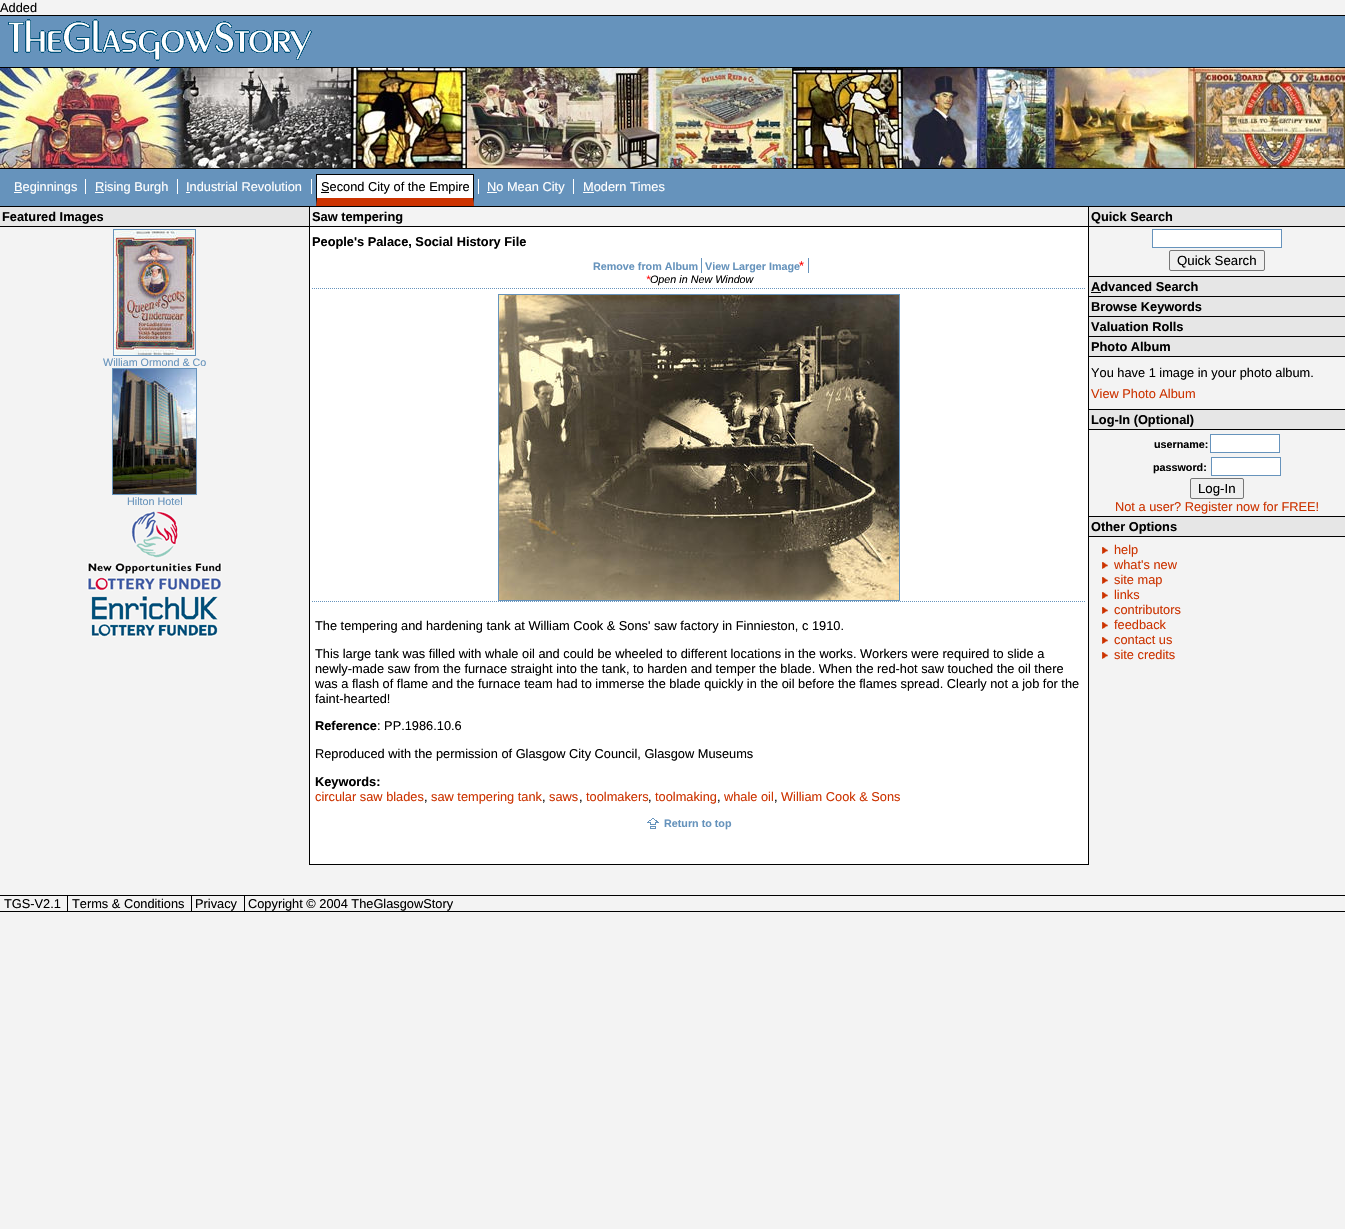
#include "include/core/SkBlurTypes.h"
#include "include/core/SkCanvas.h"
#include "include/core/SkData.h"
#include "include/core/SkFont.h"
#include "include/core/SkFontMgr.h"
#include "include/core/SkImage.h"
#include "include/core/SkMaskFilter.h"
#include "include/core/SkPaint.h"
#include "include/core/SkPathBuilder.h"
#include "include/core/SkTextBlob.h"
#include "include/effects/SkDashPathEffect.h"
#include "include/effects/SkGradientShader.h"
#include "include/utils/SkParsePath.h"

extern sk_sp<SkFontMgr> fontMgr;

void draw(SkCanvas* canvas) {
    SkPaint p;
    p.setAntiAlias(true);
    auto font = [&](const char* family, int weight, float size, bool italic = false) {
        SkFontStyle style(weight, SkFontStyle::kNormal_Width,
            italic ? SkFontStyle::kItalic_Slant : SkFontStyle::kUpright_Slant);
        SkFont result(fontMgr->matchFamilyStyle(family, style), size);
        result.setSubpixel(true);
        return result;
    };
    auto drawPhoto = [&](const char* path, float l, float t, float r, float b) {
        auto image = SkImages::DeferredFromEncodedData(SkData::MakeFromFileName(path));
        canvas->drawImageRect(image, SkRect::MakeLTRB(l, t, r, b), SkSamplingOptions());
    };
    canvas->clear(0xFFF3F3F3);
    auto font1 = font("Liberation Sans", 400, 12.8f);
    p.setColor(0xFF000000);
    canvas->drawString("Added", 0, 12, font1, p);
    p.setColor(0xFF6693BC);
    canvas->drawRect(SkRect::MakeLTRB(0, 16, 1345, 67), p);
    p.setColor(0xFF000000);
    canvas->drawRect(SkRect::MakeLTRB(0, 15, 1345, 16), p);
    drawPhoto("media/1.png", 8, 19, 312, 61);
    drawPhoto("media/2.png", 0, 68, 1345, 168);
    {
        const struct { float l, t, r, b; SkColor color; } items[] = {
            {0, 67, 1345, 68, 0xFF000000},
            {0, 168, 1345, 169, 0xFF000000},
            {0, 169, 1345, 206, 0xFF6693BC},
            {0, 206, 1345, 207, 0xFF000000},
            {14, 192, 22, 193, 0xFFFFFFFF},
        };
        for (auto [l, t, r, b, color] : items) {
            p.setColor(color);
            canvas->drawRect(SkRect::MakeLTRB(l, t, r, b), p);
        }
    }
    canvas->drawString("Beginnings", 14, 191, font1, p);
    canvas->drawRect(SkRect::MakeLTRB(95, 192, 104, 193), p);
    canvas->drawString("Rising Burgh", 95, 191, font1, p);
    canvas->drawRect(SkRect::MakeLTRB(85, 179, 86, 194), p);
    canvas->drawString("Industrial Revolution", 186, 191, font1, p);
    {
        const struct { float l, t, r, b; SkColor color; } items[] = {
            {177, 179, 178, 194, 0xFFFFFFFF},
            {186, 192, 190, 193, 0xFFFFFFFF},
            {317, 175, 473, 198, 0xFFFFFFFF},
            {321, 192, 329, 193, 0xFF000000},
        };
        for (auto [l, t, r, b, color] : items) {
            p.setColor(color);
            canvas->drawRect(SkRect::MakeLTRB(l, t, r, b), p);
        }
    }
    canvas->drawString("Second City of the Empire", 321, 191, font1, p);
    p.setColor(0xFFFFFFFF);
    canvas->drawRect(SkRect::MakeLTRB(311, 179, 312, 194), p);
    p.setColor(0xFF000000);
    canvas->drawRect(SkRect::MakeLTRB(316, 174, 474, 175), p);
    p.setColor(0xFFCC3300);
    canvas->drawPath(SkPathBuilder().moveTo(329, 206).lineTo(316, 206).lineTo(317, 198).lineTo(329, 198).close().detach(), p);
    p.setColor(0xFF000000);
    canvas->drawPath(SkPathBuilder().moveTo(316, 206).lineTo(316, 174).lineTo(317, 175).lineTo(317, 198).close().detach(), p);
    canvas->drawPath(SkPathBuilder().moveTo(474, 174).lineTo(474, 206).lineTo(473, 198).lineTo(473, 175).close().detach(), p);
    p.setColor(0xFFCC3300);
    canvas->drawPath(SkPathBuilder().moveTo(474, 206).lineTo(329, 206).lineTo(329, 198).lineTo(473, 198).close().detach(), p);
    p.setColor(0xFFFFFFFF);
    canvas->drawRect(SkRect::MakeLTRB(487, 192, 497, 193), p);
    canvas->drawString("No Mean City", 487, 191, font1, p);
    canvas->drawRect(SkRect::MakeLTRB(478, 179, 479, 194), p);
    canvas->drawString("Modern Times", 583, 191, font1, p);
    {
        const struct { float l, t, r, b; SkColor color; } items[] = {
            {573, 179, 574, 194, 0xFFFFFFFF},
            {583, 192, 594, 193, 0xFFFFFFFF},
            {0, 207, 309, 226, 0xFFE6E6E6},
            {0, 226, 309, 227, 0xFF000000},
        };
        for (auto [l, t, r, b, color] : items) {
            p.setColor(color);
            canvas->drawRect(SkRect::MakeLTRB(l, t, r, b), p);
        }
    }
    auto font2 = font("Liberation Sans", 700, 12.8f);
    canvas->drawString("Featured Images", 2, 221, font2, p);
    p.setStyle(SkPaint::kStroke_Style);
    p.setStrokeWidth(1);
    p.setColor(0xFF6693BC);
    canvas->drawRect(SkRect::MakeLTRB(113.5f, 229.5f, 195.5f, 355.5f), p);
    drawPhoto("media/3.png", 114, 230, 195, 355);
    auto font3 = font("Liberation Sans", 400, 10.75f);
    p.setStyle(SkPaint::kFill_Style);
    canvas->drawString("William Ormond & Co", 103, 366, font3, p);
    p.setStyle(SkPaint::kStroke_Style);
    canvas->drawRect(SkRect::MakeLTRB(112.5f, 368.5f, 196.5f, 494.5f), p);
    drawPhoto("media/4.png", 113, 369, 196, 494);
    p.setStyle(SkPaint::kFill_Style);
    canvas->drawString("Hilton Hotel", 127, 505, font3, p);
    drawPhoto("media/5.png", 87, 510, 222, 591);
    drawPhoto("media/6.png", 91, 595, 218, 637);
    {
        const struct { float l, t, r, b; SkColor color; } items[] = {
            {310, 227, 1088, 864, 0xFFFFFFFF},
            {1088, 207, 1089, 865, 0xFF000000},
            {309, 864, 1089, 865, 0xFF000000},
            {309, 207, 310, 865, 0xFF000000},
            {310, 226, 1088, 227, 0xFF000000},
        };
        for (auto [l, t, r, b, color] : items) {
            p.setColor(color);
            canvas->drawRect(SkRect::MakeLTRB(l, t, r, b), p);
        }
    }
    canvas->drawString("Saw tempering", 312, 221, font2, p);
    canvas->drawString("People's Palace, Social History File", 312, 246, font2, p);
    p.setStyle(SkPaint::kStroke_Style);
    p.setColor(0xFF6693BC);
    p.setPathEffect(SkDashPathEffect::Make({{1, 1}}, 0));
    canvas->drawPath(SkPathBuilder().moveTo(312, 288.5f).lineTo(1086, 288.5f).detach(), p);
    p.setPathEffect(nullptr);
    auto font4 = font("Liberation Sans", 700, 10.75f);
    p.setStyle(SkPaint::kFill_Style);
    canvas->drawString("Remove from Album", 593, 270, font4, p);
    canvas->drawString("View Larger Image", 705, 270, font4, p);
    canvas->drawRect(SkRect::MakeLTRB(701, 258, 702, 273), p);
    p.setColor(0xFFFF0000);
    canvas->drawString("*", 799, 270, font1, p);
    p.setColor(0xFF6693BC);
    canvas->drawRect(SkRect::MakeLTRB(808, 258, 809, 273), p);
    auto font5 = font("Liberation Sans", 400, 10.75f, true);
    p.setColor(0xFFFF0000);
    canvas->drawString("*", 646, 283, font5, p);
    p.setColor(0xFF000000);
    canvas->drawString("Open in New Window", 650, 283, font5, p);
    p.setStyle(SkPaint::kStroke_Style);
    p.setColor(0xFF6693BC);
    canvas->drawRect(SkRect::MakeLTRB(498.5f, 294.5f, 899.5f, 600.5f), p);
    drawPhoto("media/7.png", 499, 295, 899, 600);
    p.setPathEffect(SkDashPathEffect::Make({{1, 1}}, 0));
    canvas->drawPath(SkPathBuilder().moveTo(312, 601.5f).lineTo(1086, 601.5f).detach(), p);
    p.setPathEffect(nullptr);
    p.setStyle(SkPaint::kFill_Style);
    p.setColor(0xFF000000);
    {
        const struct { const char* s; float x, y; } items[] = {
            {"The tempering and hardening tank at William Cook & Sons' saw factory in Finnieston, c 1910.", 315, 630},
            {"This large tank was filled with whale oil and could be wheeled to different locations in the works. Workers were required to slide a", 315, 658},
            {"newly-made saw from the furnace straight into the tank, to harden and temper the blade. When the red-hot saw touched the oil there", 315, 673},
            {"was a flash of flame and the furnace team had to immerse the blade quickly in the oil before the flames spread. Clearly not a job for the", 315, 688},
            {"faint-hearted!", 315, 703},
        };
        for (auto [s, x, y] : items) {
            canvas->drawString(s, x, y, font1, p);
        }
    }
    canvas->drawString("Reference", 315, 730, font2, p);
    canvas->drawString(": PP.1986.10.6", 377, 730, font1, p);
    canvas->drawString("Reproduced with the permission of Glasgow City Council, Glasgow Museums", 315, 758, font1, p);
    canvas->drawString("Keywords:", 315, 786, font2, p);
    p.setColor(0xFFCC3300);
    canvas->drawString("circular saw blades", 315, 801, font1, p);
    p.setColor(0xFF000000);
    canvas->drawString(",", 424, 801, font1, p);
    p.setColor(0xFFCC3300);
    canvas->drawString("saw tempering tank", 431, 801, font1, p);
    p.setColor(0xFF000000);
    canvas->drawString(",", 542, 801, font1, p);
    p.setColor(0xFFCC3300);
    canvas->drawString("saws", 549, 801, font1, p);
    p.setColor(0xFF000000);
    canvas->drawString(",", 579, 801, font1, p);
    p.setColor(0xFFCC3300);
    canvas->drawString("toolmakers", 586, 801, font1, p);
    p.setColor(0xFF000000);
    canvas->drawString(",", 648, 801, font1, p);
    p.setColor(0xFFCC3300);
    canvas->drawString("toolmaking", 655, 801, font1, p);
    p.setColor(0xFF000000);
    canvas->drawString(",", 717, 801, font1, p);
    p.setColor(0xFFCC3300);
    canvas->drawString("whale oil", 724, 801, font1, p);
    p.setColor(0xFF000000);
    canvas->drawString(",", 774, 801, font1, p);
    p.setColor(0xFFCC3300);
    canvas->drawString("William Cook & Sons", 781, 801, font1, p);
    drawPhoto("media/8.png", 647, 818, 659, 829);
    p.setColor(0xFF6693BC);
    canvas->drawString("Return to top", 664, 827, font4, p);
    p.setColor(0xFFE6E6E6);
    canvas->drawRect(SkRect::MakeLTRB(1089, 207, 1345, 226), p);
    p.setColor(0xFF000000);
    canvas->drawRect(SkRect::MakeLTRB(1089, 226, 1345, 227), p);
    canvas->drawString("Quick Search", 1091, 221, font2, p);
    p.setColor(0xFFFFFFFF);
    canvas->drawRect(SkRect::MakeLTRB(1152.5f, 229.5f, 1281.5f, 247.5f), p);
    p.setStyle(SkPaint::kStroke_Style);
    p.setColor(0xFF6693BC);
    canvas->drawRect(SkRect::MakeLTRB(1152.5f, 229.5f, 1281.5f, 247.5f), p);
    p.setStyle(SkPaint::kFill_Style);
    p.setColor(0xFFEFEFEF);
    canvas->drawRoundRect(SkRect::MakeLTRB(1169.5f, 250.5f, 1264.5f, 270.5f), 1.5f, 1.5f, p);
    p.setStyle(SkPaint::kStroke_Style);
    p.setColor(0xFF767676);
    canvas->drawRoundRect(SkRect::MakeLTRB(1169.5f, 250.5f, 1264.5f, 270.5f), 1.5f, 1.5f, p);
    auto font6 = font("Liberation Sans", 400, 13.25f);
    p.setStyle(SkPaint::kFill_Style);
    p.setColor(0xFF000000);
    canvas->drawString("Quick Search", 1177, 265, font6, p);
    p.setColor(0xFFE6E6E6);
    canvas->drawRect(SkRect::MakeLTRB(1089, 277, 1345, 296), p);
    p.setColor(0xFF000000);
    canvas->drawRect(SkRect::MakeLTRB(1089, 276, 1345, 277), p);
    canvas->drawString("Advanced Search", 1091, 291, font2, p);
    {
        const struct { float l, t, r, b; SkColor color; } items[] = {
            {1091, 292, 1101, 293, 0xFF000000},
            {1089, 297, 1345, 316, 0xFFE6E6E6},
            {1089, 296, 1345, 297, 0xFF000000},
        };
        for (auto [l, t, r, b, color] : items) {
            p.setColor(color);
            canvas->drawRect(SkRect::MakeLTRB(l, t, r, b), p);
        }
    }
    canvas->drawString("Browse Keywords", 1091, 311, font2, p);
    p.setColor(0xFFE6E6E6);
    canvas->drawRect(SkRect::MakeLTRB(1089, 317, 1345, 336), p);
    p.setColor(0xFF000000);
    canvas->drawRect(SkRect::MakeLTRB(1089, 316, 1345, 317), p);
    canvas->drawString("Valuation Rolls", 1091, 331, font2, p);
    {
        const struct { float l, t, r, b; SkColor color; } items[] = {
            {1089, 337, 1345, 356, 0xFFE6E6E6},
            {1089, 336, 1345, 337, 0xFF000000},
            {1089, 356, 1345, 357, 0xFF000000},
        };
        for (auto [l, t, r, b, color] : items) {
            p.setColor(color);
            canvas->drawRect(SkRect::MakeLTRB(l, t, r, b), p);
        }
    }
    canvas->drawString("Photo Album", 1091, 351, font2, p);
    canvas->drawString("You have 1 image in your photo album.", 1091, 377, font1, p);
    p.setColor(0xFFCC3300);
    canvas->drawString("View Photo Album", 1091, 398, font1, p);
    {
        const struct { float l, t, r, b; SkColor color; } items[] = {
            {1089, 410, 1345, 429, 0xFFE6E6E6},
            {1089, 409, 1345, 410, 0xFF000000},
            {1089, 429, 1345, 430, 0xFF000000},
        };
        for (auto [l, t, r, b, color] : items) {
            p.setColor(color);
            canvas->drawRect(SkRect::MakeLTRB(l, t, r, b), p);
        }
    }
    canvas->drawString("Log-In (Optional)", 1091, 424, font2, p);
    canvas->drawString("username:", 1154, 448, font4, p);
    p.setColor(0xFFFFFFFF);
    canvas->drawRect(SkRect::MakeLTRB(1210.5f, 434.5f, 1279.5f, 452.5f), p);
    p.setStyle(SkPaint::kStroke_Style);
    p.setColor(0xFF6693BC);
    canvas->drawRect(SkRect::MakeLTRB(1210.5f, 434.5f, 1279.5f, 452.5f), p);
    p.setStyle(SkPaint::kFill_Style);
    p.setColor(0xFF000000);
    canvas->drawString("password:", 1153, 471, font4, p);
    p.setColor(0xFFFFFFFF);
    canvas->drawRect(SkRect::MakeLTRB(1211.5f, 457.5f, 1280.5f, 475.5f), p);
    p.setStyle(SkPaint::kStroke_Style);
    p.setColor(0xFF6693BC);
    canvas->drawRect(SkRect::MakeLTRB(1211.5f, 457.5f, 1280.5f, 475.5f), p);
    p.setStyle(SkPaint::kFill_Style);
    p.setColor(0xFFEFEFEF);
    canvas->drawRoundRect(SkRect::MakeLTRB(1190.5f, 478.5f, 1243.5f, 498.5f), 1.5f, 1.5f, p);
    p.setStyle(SkPaint::kStroke_Style);
    p.setColor(0xFF767676);
    canvas->drawRoundRect(SkRect::MakeLTRB(1190.5f, 478.5f, 1243.5f, 498.5f), 1.5f, 1.5f, p);
    p.setStyle(SkPaint::kFill_Style);
    p.setColor(0xFF000000);
    canvas->drawString("Log-In", 1198, 493, font6, p);
    p.setColor(0xFFCC3300);
    canvas->drawString("Not a user? Register now for FREE!", 1115, 511, font1, p);
    {
        const struct { float l, t, r, b; SkColor color; } items[] = {
            {1089, 517, 1345, 536, 0xFFE6E6E6},
            {1089, 516, 1345, 517, 0xFF000000},
            {1089, 536, 1345, 537, 0xFF000000},
        };
        for (auto [l, t, r, b, color] : items) {
            p.setColor(color);
            canvas->drawRect(SkRect::MakeLTRB(l, t, r, b), p);
        }
    }
    canvas->drawString("Other Options", 1091, 531, font2, p);
    drawPhoto("media/9.png", 1102, 547, 1108, 554);
    p.setColor(0xFFCC3300);
    canvas->drawString("help", 1114, 554, font1, p);
    drawPhoto("media/9.png", 1102, 562, 1108, 569);
    canvas->drawString("what's new", 1114, 569, font1, p);
    drawPhoto("media/9.png", 1102, 577, 1108, 584);
    canvas->drawString("site map", 1114, 584, font1, p);
    drawPhoto("media/9.png", 1102, 592, 1108, 599);
    canvas->drawString("links", 1114, 599, font1, p);
    drawPhoto("media/9.png", 1102, 607, 1108, 614);
    canvas->drawString("contributors", 1114, 614, font1, p);
    drawPhoto("media/9.png", 1102, 622, 1108, 629);
    canvas->drawString("feedback", 1114, 629, font1, p);
    drawPhoto("media/9.png", 1102, 637, 1108, 644);
    canvas->drawString("contact us", 1114, 644, font1, p);
    drawPhoto("media/9.png", 1102, 652, 1108, 659);
    canvas->drawString("site credits", 1114, 659, font1, p);
    p.setColor(0xFF000000);
    canvas->drawRect(SkRect::MakeLTRB(0, 895, 1345, 896), p);
    canvas->drawRect(SkRect::MakeLTRB(0, 911, 1345, 912), p);
    canvas->drawString("TGS-V2.1", 4, 908, font1, p);
    canvas->drawString("Terms & Conditions", 72, 908, font1, p);
    canvas->drawRect(SkRect::MakeLTRB(67, 896, 68, 911), p);
    canvas->drawString("Privacy", 195, 908, font1, p);
    canvas->drawRect(SkRect::MakeLTRB(191, 896, 192, 911), p);
    canvas->drawString("Copyright © 2004 TheGlasgowStory", 248, 908, font1, p);
    canvas->drawRect(SkRect::MakeLTRB(244, 896, 245, 911), p);
}
